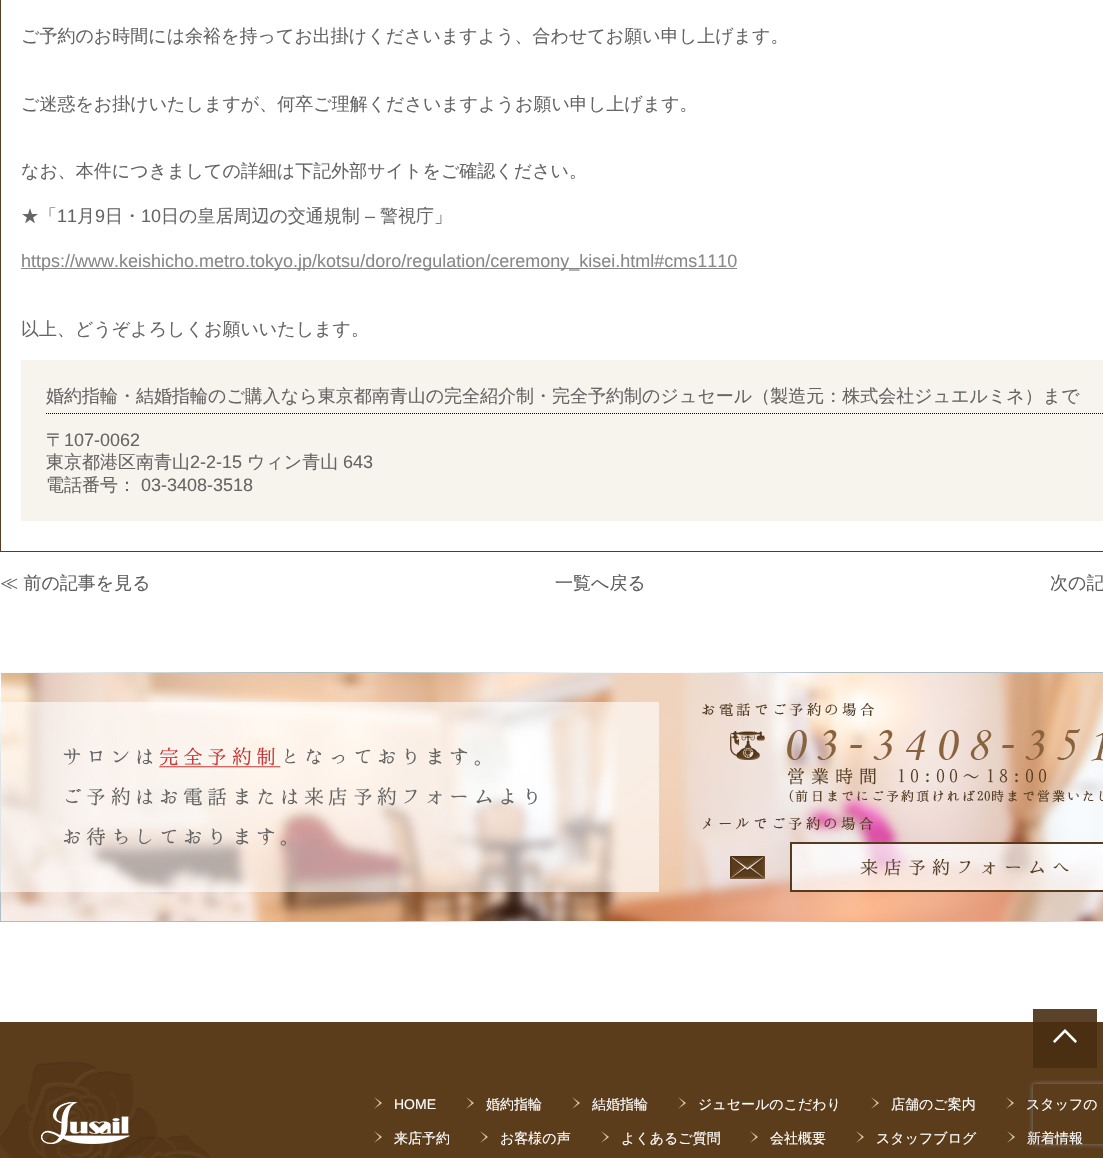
#include "include/core/SkBlurTypes.h"
#include "include/core/SkCanvas.h"
#include "include/core/SkData.h"
#include "include/core/SkFont.h"
#include "include/core/SkFontMgr.h"
#include "include/core/SkImage.h"
#include "include/core/SkMaskFilter.h"
#include "include/core/SkPaint.h"
#include "include/core/SkPathBuilder.h"
#include "include/core/SkTextBlob.h"
#include "include/effects/SkDashPathEffect.h"
#include "include/effects/SkGradientShader.h"
#include "include/utils/SkParsePath.h"

extern sk_sp<SkFontMgr> fontMgr;

void draw(SkCanvas* canvas) {
    SkPaint p;
    p.setAntiAlias(true);
    auto font = [&](const char* family, int weight, float size, bool italic = false) {
        SkFontStyle style(weight, SkFontStyle::kNormal_Width,
            italic ? SkFontStyle::kItalic_Slant : SkFontStyle::kUpright_Slant);
        SkFont result(fontMgr->matchFamilyStyle(family, style), size);
        result.setSubpixel(true);
        return result;
    };
    auto drawPhoto = [&](const char* path, float l, float t, float r, float b) {
        auto image = SkImages::DeferredFromEncodedData(SkData::MakeFromFileName(path));
        canvas->drawImageRect(image, SkRect::MakeLTRB(l, t, r, b), SkSamplingOptions());
    };
    canvas->clear(0xFFFFFFFF);
    p.setColor(0xFF5B4329);
    canvas->drawRect(SkRect::MakeLTRB(1033, 1009, 1097, 1022), p);
    p.setStyle(SkPaint::kStroke_Style);
    p.setStrokeWidth(1);
    p.setColor(0xFF563E24);
    canvas->drawRect(SkRect::MakeLTRB(0.5f, -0.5f, 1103.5f, 551.5f), p);
    auto font1 = font("WenQuanYi Zen Hei", 500, 18);
    p.setStyle(SkPaint::kFill_Style);
    p.setColor(0xFF656565);
    {
        const struct { const char* s; float x, y; } items[] = {
            {"ご予約のお時間には余裕を持ってお出掛けくださいますよう、合わせてお願い申し上げます。", 21, 42},
            {"ご迷惑をお掛けいたしますが、何卒ご理解くださいますようお願い申し上げます。", 21, 110},
            {"なお、本件につきましての詳細は下記外部サイトをご確認ください。", 21, 177},
            {"★「", 21, 222},
        };
        for (auto [s, x, y] : items) {
            canvas->drawString(s, x, y, font1, p);
        }
    }
    auto font2 = font("Liberation Sans", 400, 18);
    canvas->drawString("11", 57, 222, font2, p);
    canvas->drawString("月", 77, 222, font1, p);
    canvas->drawString("9", 95, 222, font2, p);
    canvas->drawString("日・", 105, 222, font1, p);
    canvas->drawString("10", 141, 222, font2, p);
    canvas->drawString("日の皇居周辺の交通規制", 161, 222, font1, p);
    canvas->drawString("–", 365, 222, font2, p);
    canvas->drawString("警視庁」", 380, 222, font1, p);
    p.setColor(0xFF888888);
    canvas->drawRect(SkRect::MakeLTRB(21, 268, 737, 269), p);
    canvas->drawString("https://www.keishicho.metro.tokyo.jp/kotsu/doro/regulation/ceremony_kisei.html#cms1110", 21, 267, font2, p);
    p.setColor(0xFF656565);
    canvas->drawString("以上、どうぞよろしくお願いいたします。", 21, 335, font1, p);
    p.setColor(0xFFF7F4ED);
    canvas->drawRect(SkRect::MakeLTRB(21, 360, 1103, 521), p);
    p.setStyle(SkPaint::kStroke_Style);
    p.setColor(0xFF000000);
    p.setPathEffect(SkDashPathEffect::Make({{1, 1}}, 0));
    canvas->drawPath(SkPathBuilder().moveTo(46, 413.5f).lineTo(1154, 413.5f).detach(), p);
    p.setPathEffect(nullptr);
    p.setStyle(SkPaint::kFill_Style);
    p.setColor(0xFF656565);
    canvas->drawString("婚約指輪・結婚指輪のご購入なら東京都南青山の完全紹介制・完全予約制のジュセール（製造元：株式会社ジュエルミネ）まで", 46, 402, font1, p);
    canvas->drawString("〒", 46, 446, font1, p);
    canvas->drawString("107-0062", 64, 446, font2, p);
    canvas->drawString("東京都港区南青山", 46, 468, font1, p);
    canvas->drawString("2-2-15", 190, 468, font2, p);
    canvas->drawString("ウィン青山", 247, 468, font1, p);
    canvas->drawString("643", 343, 468, font2, p);
    canvas->drawString("電話番号：", 46, 491, font1, p);
    canvas->drawString("03-3408-3518", 141, 491, font2, p);
    p.setColor(0xFF5F5F5F);
    {
        const struct { const char* s; float x, y; } items[] = {
            {"≪ 前の記事を見る", 0, 589},
            {"一覧へ戻る", 555, 589},
            {"次の記", 1050, 589},
        };
        for (auto [s, x, y] : items) {
            canvas->drawString(s, x, y, font1, p);
        }
    }
    drawPhoto("media/1.png", 0, 672, 1103, 922);
    p.setColor(0xFF5B3C1B);
    canvas->drawRect(SkRect::MakeLTRB(0, 1022, 1103, 1158), p);
    p.setColor(0xFF4B2F12);
    canvas->drawRect(SkRect::MakeLTRB(1033, 1022, 1097, 1068), p);
    drawPhoto("media/2.png", 1053, 1029, 1077, 1043);
    drawPhoto("media/3.png", 0, 1062, 210, 1158);
    drawPhoto("media/4.png", 41, 1102, 130, 1144);
    drawPhoto("media/5.png", 374, 1097, 382, 1109);
    auto font3 = font("Liberation Sans", 400, 14);
    p.setColor(0xFFFFFFFF);
    canvas->drawString("HOME", 394, 1109, font3, p);
    drawPhoto("media/5.png", 466, 1097, 474, 1109);
    auto font4 = font("WenQuanYi Zen Hei", 500, 14);
    canvas->drawString("婚約指輪", 486, 1109, font4, p);
    drawPhoto("media/5.png", 572, 1097, 580, 1109);
    canvas->drawString("結婚指輪", 592, 1109, font4, p);
    drawPhoto("media/5.png", 678, 1097, 686, 1109);
    canvas->drawString("ジュセールのこだわり", 698, 1109, font4, p);
    drawPhoto("media/5.png", 871, 1097, 879, 1109);
    canvas->drawString("店舗のご案内", 891, 1109, font4, p);
    drawPhoto("media/5.png", 1006, 1097, 1014, 1109);
    canvas->drawString("スタッフの", 1026, 1109, font4, p);
    drawPhoto("media/5.png", 374, 1131, 382, 1143);
    canvas->drawString("来店予約", 394, 1143, font4, p);
    drawPhoto("media/5.png", 480, 1131, 488, 1143);
    canvas->drawString("お客様の声", 500, 1143, font4, p);
    drawPhoto("media/5.png", 601, 1131, 609, 1143);
    canvas->drawString("よくあるご質問", 621, 1143, font4, p);
    drawPhoto("media/5.png", 750, 1131, 758, 1143);
    canvas->drawString("会社概要", 770, 1143, font4, p);
    drawPhoto("media/5.png", 856, 1131, 864, 1143);
    canvas->drawString("スタッフブログ", 876, 1143, font4, p);
    drawPhoto("media/5.png", 1007, 1131, 1015, 1143);
    canvas->drawString("新着情報", 1027, 1143, font4, p);
    canvas->save();
    canvas->clipPath(SkPathBuilder(SkPathFillType::kEvenOdd).moveTo(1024, 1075).lineTo(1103, 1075).lineTo(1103, 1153).lineTo(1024, 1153).close().moveTo(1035, 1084).lineTo(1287, 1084).cubicTo(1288, 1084, 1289, 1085, 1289, 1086).lineTo(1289, 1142).cubicTo(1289, 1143, 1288, 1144, 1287, 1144).lineTo(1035, 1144).cubicTo(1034, 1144, 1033, 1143, 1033, 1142).lineTo(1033, 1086).cubicTo(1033, 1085, 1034, 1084, 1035, 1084).close().detach(), true);
    p.setColor(0xFF808080);
    p.setMaskFilter(SkMaskFilter::MakeBlur(kNormal_SkBlurStyle, 2.5f));
    canvas->drawRoundRect(SkRect::MakeLTRB(1033, 1084, 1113, 1144), 2, 2, p);
    p.setMaskFilter(nullptr);
    canvas->restore();
}
